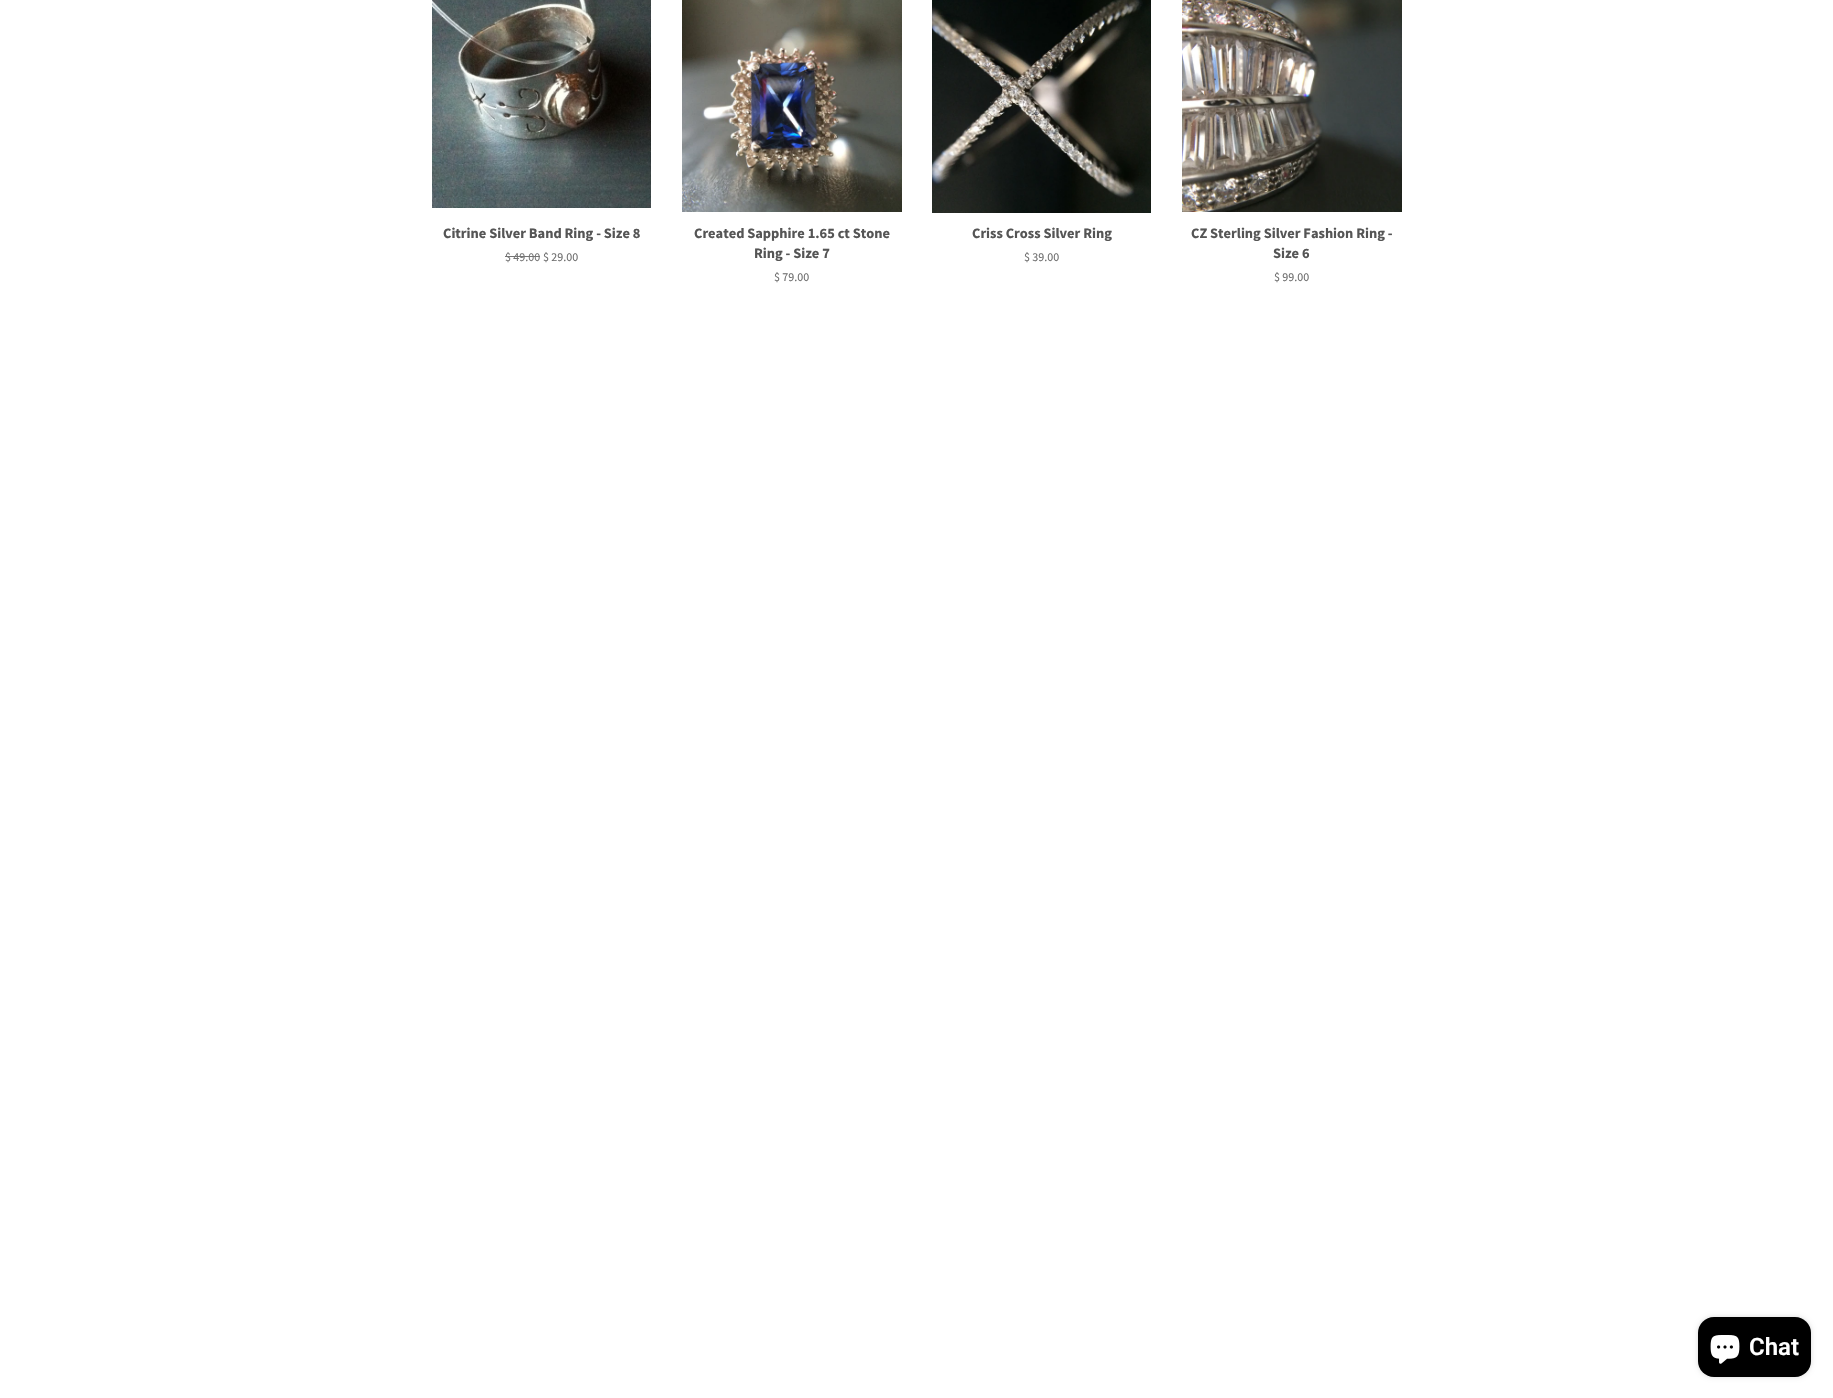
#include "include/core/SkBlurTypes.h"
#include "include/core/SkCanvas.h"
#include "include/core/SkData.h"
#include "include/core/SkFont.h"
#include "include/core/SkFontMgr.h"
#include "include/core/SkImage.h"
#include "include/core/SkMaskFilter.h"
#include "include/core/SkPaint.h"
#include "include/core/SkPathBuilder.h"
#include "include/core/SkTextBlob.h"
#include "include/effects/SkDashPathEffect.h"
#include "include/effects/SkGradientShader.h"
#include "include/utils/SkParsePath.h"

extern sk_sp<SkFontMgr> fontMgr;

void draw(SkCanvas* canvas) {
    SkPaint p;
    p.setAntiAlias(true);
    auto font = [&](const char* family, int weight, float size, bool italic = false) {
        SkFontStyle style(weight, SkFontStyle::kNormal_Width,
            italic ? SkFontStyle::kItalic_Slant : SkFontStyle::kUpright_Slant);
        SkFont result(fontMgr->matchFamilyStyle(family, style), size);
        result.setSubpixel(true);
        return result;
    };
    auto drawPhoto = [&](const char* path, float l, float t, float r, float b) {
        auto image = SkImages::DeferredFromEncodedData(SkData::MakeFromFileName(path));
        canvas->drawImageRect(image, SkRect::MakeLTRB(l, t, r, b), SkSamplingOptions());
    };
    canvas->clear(0xFFFFFFFF);
    drawPhoto("media/1.png", 432, 0, 651, 208);
    auto font1 = font("Source Sans Pro", 700, 14.4f);
    p.setColor(0xFF555555);
    canvas->drawString("Citrine Silver Band Ring - Size 8", 443, 238, font1, p);
    auto font2 = font("Source Sans Pro", 400, 12);
    p.setColor(0xFF757575);
    canvas->drawString("$ 49.00", 505, 261, font2, p);
    canvas->drawRect(SkRect::MakeLTRB(505, 256, 540, 257), p);
    p.setColor(0xFF6E6E6E);
    canvas->drawString("$ 29.00", 543, 261, font2, p);
    drawPhoto("media/2.png", 682, 0, 902, 212);
    p.setColor(0xFF555555);
    canvas->drawString("Created Sapphire 1.65 ct Stone", 694, 238, font1, p);
    canvas->drawString("Ring - Size 7", 754, 258, font1, p);
    p.setColor(0xFF6E6E6E);
    canvas->drawString("$ 79.00", 774, 281, font2, p);
    drawPhoto("media/3.png", 932, 0, 1151, 213);
    p.setColor(0xFF555555);
    canvas->drawString("Criss Cross Silver Ring", 972, 238, font1, p);
    p.setColor(0xFF6E6E6E);
    canvas->drawString("$ 39.00", 1024, 261, font2, p);
    drawPhoto("media/4.png", 1182, 0, 1402, 212);
    p.setColor(0xFF555555);
    canvas->drawString("CZ Sterling Silver Fashion Ring -", 1191, 238, font1, p);
    canvas->drawString("Size 6", 1273, 258, font1, p);
    p.setColor(0xFF6E6E6E);
    canvas->drawString("$ 99.00", 1274, 281, font2, p);
    p.setColor(0x26000000);
    p.setMaskFilter(SkMaskFilter::MakeBlur(kNormal_SkBlurStyle, 2.5f));
    canvas->drawRoundRect(SkRect::MakeLTRB(1698, 1317, 1811, 1377), 16, 16, p);
    p.setMaskFilter(nullptr);
    p.setColor(0xFF000000);
    canvas->drawRoundRect(SkRect::MakeLTRB(1698, 1317, 1811, 1377), 16, 16, p);
    drawPhoto("media/5.png", 1710, 1335, 1740, 1364);
    auto font3 = font("Roboto", 600, 24);
    p.setColor(0xFFFFFFFF);
    canvas->drawString("Chat", 1749, 1355, font3, p);
}
